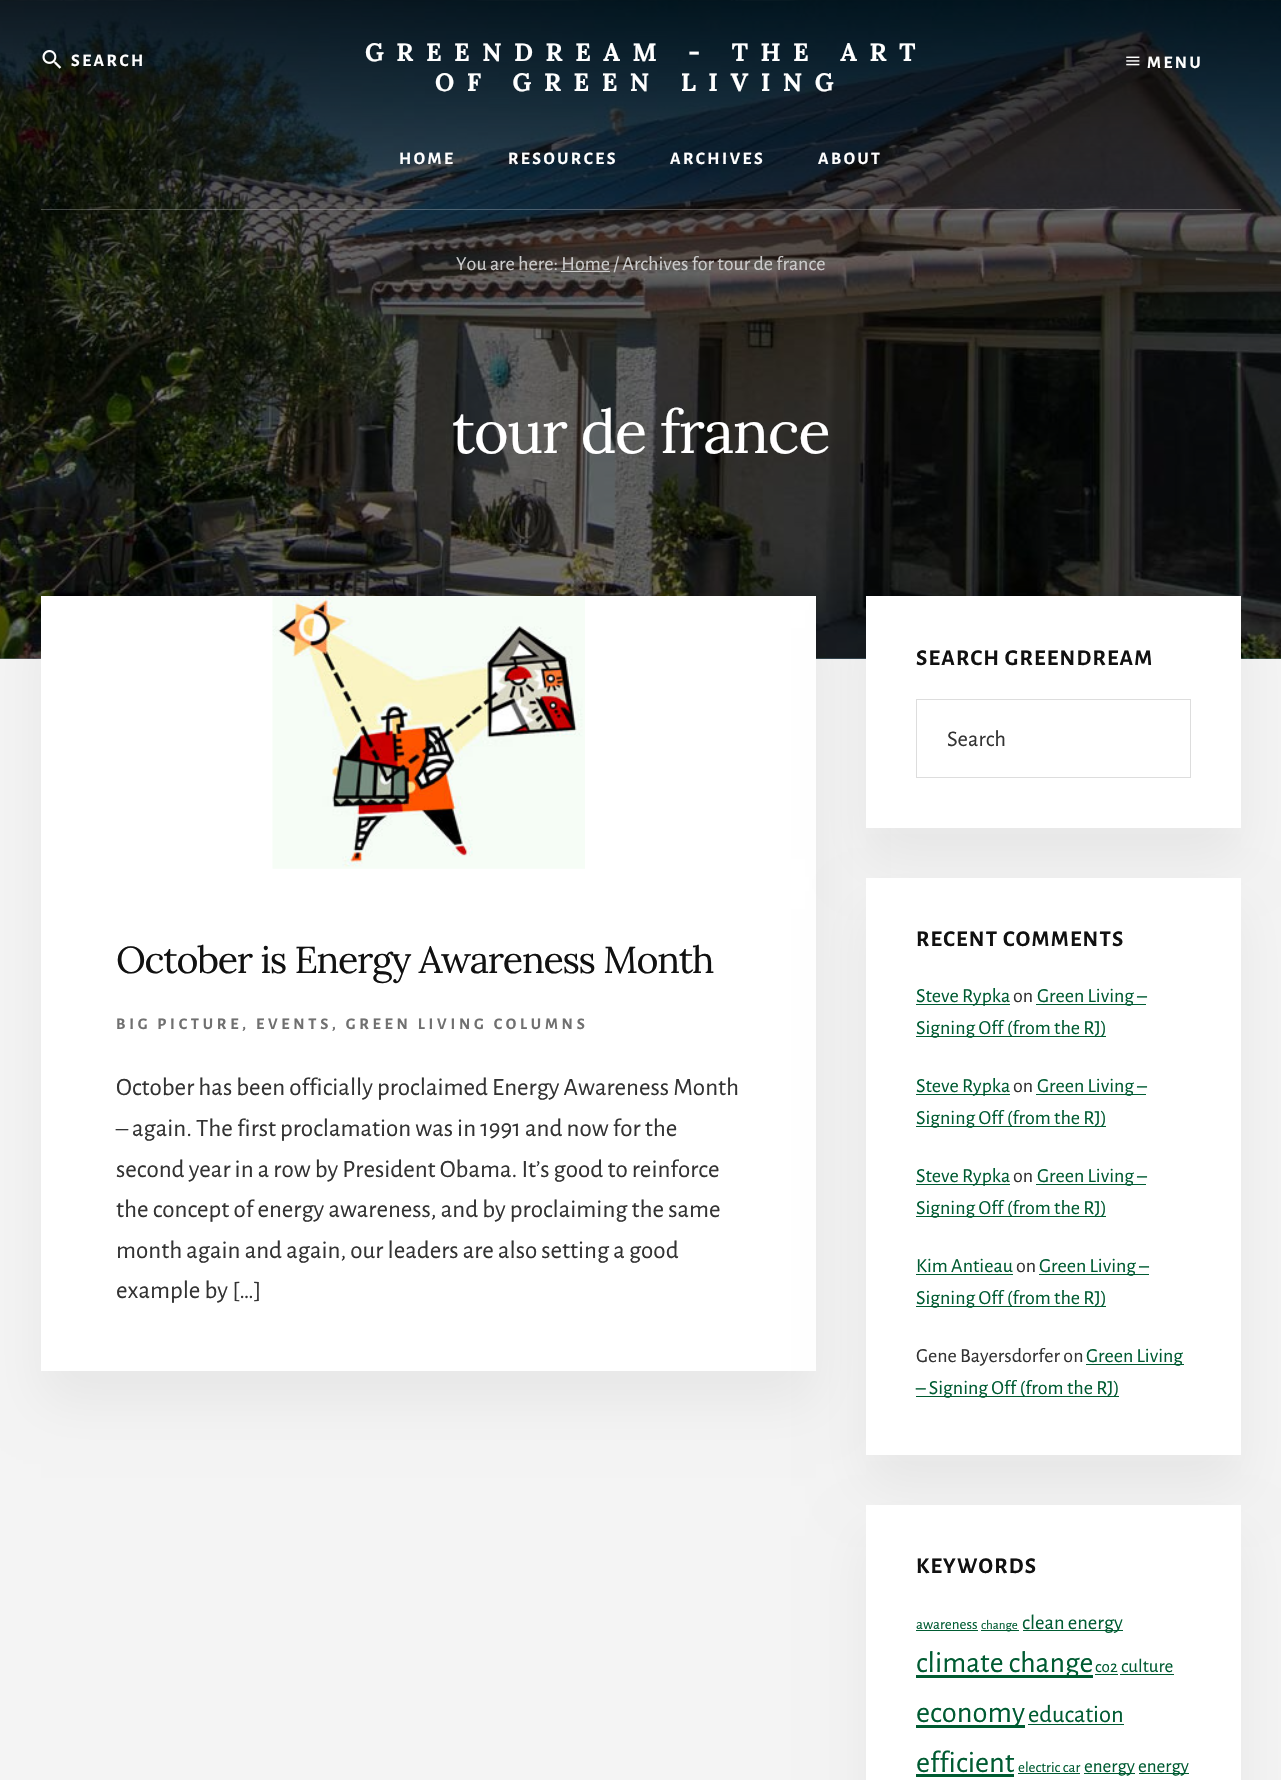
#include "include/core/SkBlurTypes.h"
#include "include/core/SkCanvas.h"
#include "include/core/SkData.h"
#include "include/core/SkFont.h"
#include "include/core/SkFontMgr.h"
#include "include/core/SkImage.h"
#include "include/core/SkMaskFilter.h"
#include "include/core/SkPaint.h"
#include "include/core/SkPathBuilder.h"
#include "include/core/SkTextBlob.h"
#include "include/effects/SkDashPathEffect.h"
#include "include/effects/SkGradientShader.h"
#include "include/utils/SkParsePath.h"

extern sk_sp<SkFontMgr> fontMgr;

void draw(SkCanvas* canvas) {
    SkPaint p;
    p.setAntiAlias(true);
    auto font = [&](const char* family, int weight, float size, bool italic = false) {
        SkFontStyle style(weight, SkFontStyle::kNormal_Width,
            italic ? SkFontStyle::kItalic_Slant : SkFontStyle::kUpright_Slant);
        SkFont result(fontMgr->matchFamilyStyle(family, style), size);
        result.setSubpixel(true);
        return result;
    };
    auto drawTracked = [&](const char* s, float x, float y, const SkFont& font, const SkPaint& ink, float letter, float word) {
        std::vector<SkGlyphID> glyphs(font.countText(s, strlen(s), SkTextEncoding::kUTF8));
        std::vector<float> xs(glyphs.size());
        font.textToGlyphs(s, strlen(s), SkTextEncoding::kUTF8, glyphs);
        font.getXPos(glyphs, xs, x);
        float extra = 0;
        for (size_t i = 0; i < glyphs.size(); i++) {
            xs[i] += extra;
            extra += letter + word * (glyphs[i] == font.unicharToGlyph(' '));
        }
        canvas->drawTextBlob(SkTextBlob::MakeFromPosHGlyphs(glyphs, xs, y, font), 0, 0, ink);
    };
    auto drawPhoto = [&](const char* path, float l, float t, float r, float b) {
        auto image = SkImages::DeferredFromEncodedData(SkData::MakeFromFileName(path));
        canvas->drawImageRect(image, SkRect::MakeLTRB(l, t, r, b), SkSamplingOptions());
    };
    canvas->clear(0xFFF4F4F4);
    drawPhoto("media/1.png", 0, 0, 1281, 659);
    drawPhoto("media/2.png", 42, 50, 62, 69);
    auto font1 = font("Alegreya Sans", 700, 17.5f);
    p.setColor(0xFFFFFFFF);
    drawTracked("SEARCH", 71, 66, font1, p, 2.5f, 0);
    auto font2 = font("Lora", 700, 25);
    drawTracked("GREENDREAM - THE ART", 365, 61, font2, p, 12.5f, 0);
    drawTracked("OF GREEN LIVING", 435, 91, font2, p, 12.5f, 0);
    drawPhoto("media/3.png", 1126, 56, 1140, 66);
    drawTracked("MENU", 1147, 68, font1, p, 2.5f, 0);
    p.setColor(0x40FFFFFF);
    canvas->drawRect(SkRect::MakeLTRB(41, 209, 1241, 210), p);
    p.setColor(0xFFFFFFFF);
    {
        const struct { const char* s; float x, y; } items[] = {
            {"HOME", 399, 164},
            {"RESOURCES", 508, 164},
            {"ARCHIVES", 670, 164},
            {"ABOUT", 818, 164},
        };
        for (auto [s, x, y] : items) {
            drawTracked(s, x, y, font1, p, 2.5f, 0);
        }
    }
    auto font3 = font("Alegreya Sans", 400, 20);
    p.setColor(0xFFCCCCCC);
    canvas->drawString("You are here: Home / Archives for tour de france", 456, 270, font3, p);
    canvas->drawRect(SkRect::MakeLTRB(561, 271, 610, 272), p);
    auto font4 = font("Lora", 400, 60);
    p.setColor(0xFFFFFFFF);
    drawTracked("tour de france", 452, 453, font4, p, -1.5f, 0);
    p.setColor(0x0D000000);
    p.setMaskFilter(SkMaskFilter::MakeBlur(kNormal_SkBlurStyle, 25));
    canvas->drawRect(SkRect::MakeLTRB(41, 628, 816, 1403), p);
    p.setMaskFilter(nullptr);
    p.setColor(0xFFFFFFFF);
    canvas->drawRect(SkRect::MakeLTRB(41, 596, 816, 1371), p);
    drawPhoto("media/4.png", 272, 596, 585, 869);
    auto font5 = font("Lora", 400, 37.5f);
    p.setColor(0xFF111111);
    drawTracked("October is Energy Awareness Month", 116, 973, font5, p, -1.25f, 0);
    auto font6 = font("Alegreya Sans", 700, 16.25f);
    p.setColor(0xFF707070);
    drawTracked("BIG PICTURE, EVENTS, GREEN LIVING COLUMNS", 116, 1029, font6, p, 3.75f, 0);
    auto font7 = font("Alegreya Sans", 400, 25);
    p.setColor(0xFF333333);
    {
        const struct { const char* s; float x, y; } items[] = {
            {"October has been officially proclaimed Energy Awareness Month", 116, 1095},
            {"– again. The first proclamation was in 1991 and now for the", 116, 1136},
            {"second year in a row by President Obama. It’s good to reinforce", 116, 1177},
            {"the concept of energy awareness, and by proclaiming the same", 116, 1217},
            {"month again and again, our leaders are also setting a good", 116, 1258},
            {"example by […]", 116, 1298},
        };
        for (auto [s, x, y] : items) {
            canvas->drawString(s, x, y, font7, p);
        }
    }
    p.setColor(0x0D000000);
    p.setMaskFilter(SkMaskFilter::MakeBlur(kNormal_SkBlurStyle, 25));
    canvas->drawRect(SkRect::MakeLTRB(866, 628, 1241, 859), p);
    p.setMaskFilter(nullptr);
    p.setColor(0xFFFFFFFF);
    canvas->drawRect(SkRect::MakeLTRB(866, 596, 1241, 828), p);
    auto font8 = font("Alegreya Sans", 700, 22.5f);
    p.setColor(0xFF111111);
    drawTracked("SEARCH GREENDREAM", 916, 665, font8, p, 1.25f, 0);
    p.setStyle(SkPaint::kStroke_Style);
    p.setStrokeWidth(1);
    p.setColor(0xFFDDDDDD);
    canvas->drawRect(SkRect::MakeLTRB(916.5f, 699.5f, 1190.5f, 777.5f), p);
    auto font9 = font("Alegreya Sans", 400, 22.5f);
    p.setStyle(SkPaint::kFill_Style);
    p.setColor(0xFF333333);
    canvas->drawString("Search", 947, 746, font9, p);
    p.setColor(0x0D000000);
    p.setMaskFilter(SkMaskFilter::MakeBlur(kNormal_SkBlurStyle, 25));
    canvas->drawRect(SkRect::MakeLTRB(866, 909, 1241, 1486), p);
    p.setMaskFilter(nullptr);
    p.setColor(0xFFFFFFFF);
    canvas->drawRect(SkRect::MakeLTRB(866, 878, 1241, 1455), p);
    p.setColor(0xFF111111);
    drawTracked("RECENT COMMENTS", 916, 946, font8, p, 1.25f, 0);
    p.setColor(0xFF005B32);
    canvas->drawRect(SkRect::MakeLTRB(916, 1004, 1010, 1005), p);
    canvas->drawString("Steve Rypka", 916, 1002, font3, p);
    p.setColor(0xFF333333);
    canvas->drawString("on", 1013, 1002, font3, p);
    p.setColor(0xFF005B32);
    canvas->drawRect(SkRect::MakeLTRB(1036, 1004, 1146, 1005), p);
    canvas->drawString("Green Living –", 1037, 1002, font3, p);
    canvas->drawRect(SkRect::MakeLTRB(916, 1036, 1106, 1037), p);
    canvas->drawString("Signing Off (from the RJ)", 916, 1034, font3, p);
    canvas->drawRect(SkRect::MakeLTRB(916, 1094, 1010, 1095), p);
    canvas->drawString("Steve Rypka", 916, 1092, font3, p);
    p.setColor(0xFF333333);
    canvas->drawString("on", 1013, 1092, font3, p);
    p.setColor(0xFF005B32);
    canvas->drawRect(SkRect::MakeLTRB(1036, 1094, 1146, 1095), p);
    canvas->drawString("Green Living –", 1037, 1092, font3, p);
    canvas->drawRect(SkRect::MakeLTRB(916, 1126, 1106, 1127), p);
    canvas->drawString("Signing Off (from the RJ)", 916, 1124, font3, p);
    canvas->drawRect(SkRect::MakeLTRB(916, 1184, 1010, 1185), p);
    canvas->drawString("Steve Rypka", 916, 1182, font3, p);
    p.setColor(0xFF333333);
    canvas->drawString("on", 1013, 1182, font3, p);
    p.setColor(0xFF005B32);
    canvas->drawRect(SkRect::MakeLTRB(1036, 1184, 1146, 1185), p);
    canvas->drawString("Green Living –", 1037, 1182, font3, p);
    canvas->drawRect(SkRect::MakeLTRB(916, 1216, 1106, 1217), p);
    canvas->drawString("Signing Off (from the RJ)", 916, 1214, font3, p);
    canvas->drawString("Kim Antieau", 916, 1272, font3, p);
    canvas->drawRect(SkRect::MakeLTRB(916, 1274, 1013, 1275), p);
    p.setColor(0xFF333333);
    canvas->drawString("on", 1016, 1272, font3, p);
    p.setColor(0xFF005B32);
    canvas->drawRect(SkRect::MakeLTRB(1039, 1274, 1149, 1275), p);
    canvas->drawString("Green Living –", 1039, 1272, font3, p);
    canvas->drawRect(SkRect::MakeLTRB(916, 1306, 1106, 1307), p);
    canvas->drawString("Signing Off (from the RJ)", 916, 1304, font3, p);
    p.setColor(0xFF333333);
    canvas->drawString("Gene Bayersdorfer on", 916, 1362, font3, p);
    p.setColor(0xFF005B32);
    canvas->drawRect(SkRect::MakeLTRB(1086, 1364, 1184, 1365), p);
    canvas->drawString("Green Living", 1086, 1362, font3, p);
    canvas->drawRect(SkRect::MakeLTRB(916, 1396, 1119, 1397), p);
    canvas->drawString("– Signing Off (from the RJ)", 916, 1394, font3, p);
    p.setColor(0x0D000000);
    p.setMaskFilter(SkMaskFilter::MakeBlur(kNormal_SkBlurStyle, 25));
    canvas->drawRect(SkRect::MakeLTRB(866, 1536, 1241, 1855), p);
    p.setMaskFilter(nullptr);
    p.setColor(0xFFFFFFFF);
    canvas->drawRect(SkRect::MakeLTRB(866, 1505, 1241, 1780), p);
    p.setColor(0xFF111111);
    drawTracked("KEYWORDS", 916, 1573, font8, p, 1.25f, 0);
    auto font10 = font("Alegreya Sans", 400, 15);
    p.setColor(0xFF005B32);
    canvas->drawString("awareness", 916, 1629, font10, p);
    canvas->drawRect(SkRect::MakeLTRB(916, 1630, 978, 1631), p);
    canvas->drawRect(SkRect::MakeLTRB(981, 1630, 1019, 1631), p);
    auto font11 = font("Alegreya Sans", 400, 13);
    canvas->drawString("change", 981, 1629, font11, p);
    canvas->drawRect(SkRect::MakeLTRB(1023, 1630, 1123, 1631), p);
    auto font12 = font("Alegreya Sans", 400, 20.5f);
    canvas->drawString("clean energy", 1022, 1629, font12, p);
    canvas->drawRect(SkRect::MakeLTRB(916, 1675, 1093, 1678), p);
    auto font13 = font("Alegreya Sans", 400, 30);
    canvas->drawString("climate change", 916, 1672, font13, p);
    auto font14 = font("Alegreya Sans", 400, 17);
    canvas->drawString("co2", 1095, 1672, font14, p);
    canvas->drawRect(SkRect::MakeLTRB(1095, 1674, 1118, 1675), p);
    auto font15 = font("Alegreya Sans", 400, 19);
    canvas->drawString("culture", 1121, 1672, font15, p);
    canvas->drawRect(SkRect::MakeLTRB(1120, 1674, 1174, 1675), p);
    canvas->drawRect(SkRect::MakeLTRB(916, 1725, 1025, 1728), p);
    auto font16 = font("Alegreya Sans", 400, 30.5f);
    canvas->drawString("economy", 916, 1722, font16, p);
    auto font17 = font("Alegreya Sans", 400, 24.5f);
    canvas->drawString("education", 1028, 1722, font17, p);
    canvas->drawRect(SkRect::MakeLTRB(1028, 1724, 1124, 1725), p);
    canvas->drawString("efficient", 916, 1772, font16, p);
    canvas->drawRect(SkRect::MakeLTRB(916, 1774, 1014, 1777), p);
    canvas->drawString("electric car", 1018, 1772, font10, p);
    canvas->drawRect(SkRect::MakeLTRB(1018, 1773, 1080, 1774), p);
    canvas->drawRect(SkRect::MakeLTRB(1084, 1773, 1135, 1774), p);
    canvas->drawString("energy", 1084, 1772, font15, p);
    canvas->drawRect(SkRect::MakeLTRB(1139, 1773, 1189, 1774), p);
    canvas->drawString("energy", 1138, 1772, font15, p);
}
